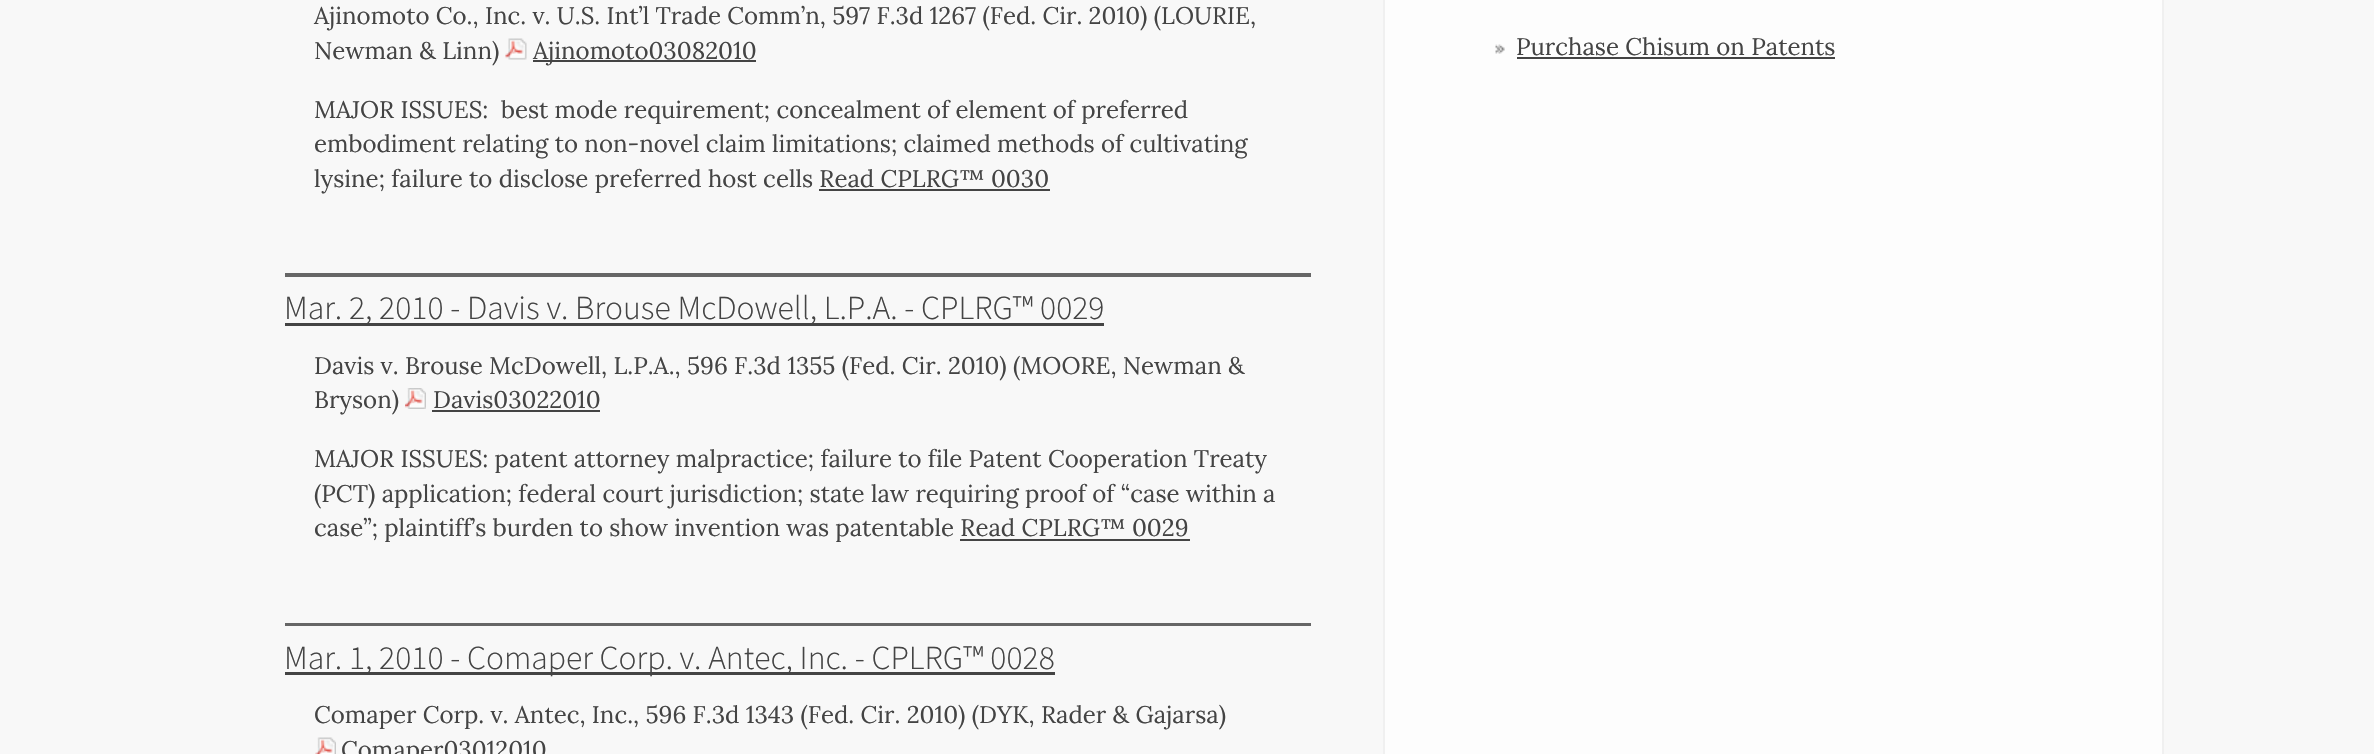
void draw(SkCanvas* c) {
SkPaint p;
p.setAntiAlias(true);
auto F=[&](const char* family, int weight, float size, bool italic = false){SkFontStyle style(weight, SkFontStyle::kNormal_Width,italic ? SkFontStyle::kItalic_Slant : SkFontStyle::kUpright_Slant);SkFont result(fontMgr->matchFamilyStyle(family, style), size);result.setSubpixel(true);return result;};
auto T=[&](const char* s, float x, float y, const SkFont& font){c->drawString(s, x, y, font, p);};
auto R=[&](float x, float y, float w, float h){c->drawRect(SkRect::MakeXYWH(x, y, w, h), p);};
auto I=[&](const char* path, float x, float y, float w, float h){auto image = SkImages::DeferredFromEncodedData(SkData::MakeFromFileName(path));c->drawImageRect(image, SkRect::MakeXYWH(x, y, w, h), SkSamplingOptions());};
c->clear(0xfff8f8f8);
p.setColor(0xff666666);
R(285,273,1026,4);
auto f1 = F("Lora",400,24);
p.setColor(0xff444444);
T("Ajinomoto Co., Inc. v. U.S. Int’l Trade Comm’n, 597 F.3d 1267 (Fed. Cir. 2010) (LOURIE,",314,24,f1);
T("Newman & Linn)",314,59,f1);
I("1.png",505,38,22,22);
R(533,60,223,2);
T("Ajinomoto03082010",533,59,f1);
T("MAJOR ISSUES:  best mode requirement; concealment of element of preferred",314,118,f1);
T("embodiment relating to non-novel claim limitations; claimed methods of cultivating",314,152,f1);
T("lysine; failure to disclose preferred host cells Read CPLRG™ 0030",314,187,f1);
R(819,189,231,2);
p.setColor(0xff666666);
R(285,623,1026,3);
p.setColor(0xff444444);
R(285,323,819,3);
auto f2 = F("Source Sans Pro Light",300,33.6);
T("Mar. 2, 2010 - Davis v. Brouse McDowell, L.P.A. - CPLRG™ 0029",284,319,f2);
T("Davis v. Brouse McDowell, L.P.A., 596 F.3d 1355 (Fed. Cir. 2010) (MOORE, Newman &",314,374,f1);
T("Bryson)",314,408,f1);
I("2.png",405,388,21,21);
T("Davis03022010",433,408,f1);
R(432,410,168,2);
T("MAJOR ISSUES: patent attorney malpractice; failure to file Patent Cooperation Treaty",314,467,f1);
T("(PCT) application; federal court jurisdiction; state law requiring proof of “case within a",314,502,f1);
T("case”; plaintiff’s burden to show invention was patentable Read CPLRG™ 0029",314,536,f1);
R(960,539,230,2);
R(285,672,770,3);
T("Mar. 1, 2010 - Comaper Corp. v. Antec, Inc. - CPLRG™ 0028",284,669,f2);
T("Comaper Corp. v. Antec, Inc., 596 F.3d 1343 (Fed. Cir. 2010) (DYK, Rader & Gajarsa)",314,723,f1);
I("3.png",315,737,21,17);
T("Comaper03012010",341,758,f1);
{
const SkColor colors[] = {0xfffdfdfd,0xfff8f8f8};
const float stops[] = {.81,.99};
const SkPoint ends[] = {{1773,-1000}, {1773,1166}};
p.setShader(SkGradientShader::MakeLinear(ends, colors, stops, 2, SkTileMode::kClamp));
p.setAlpha(255);
}
R(1385,0,777,754);
p.setShader(nullptr);
p.setColor(0xfff0f0f0);
R(2162,0,2,754);
R(1383,0,2,754);
I("4.png",1495,44,10,10);
p.setColor(0xff444444);
T("Purchase Chisum on Patents",1516,55,f1);
R(1517,57,318,2);
}
